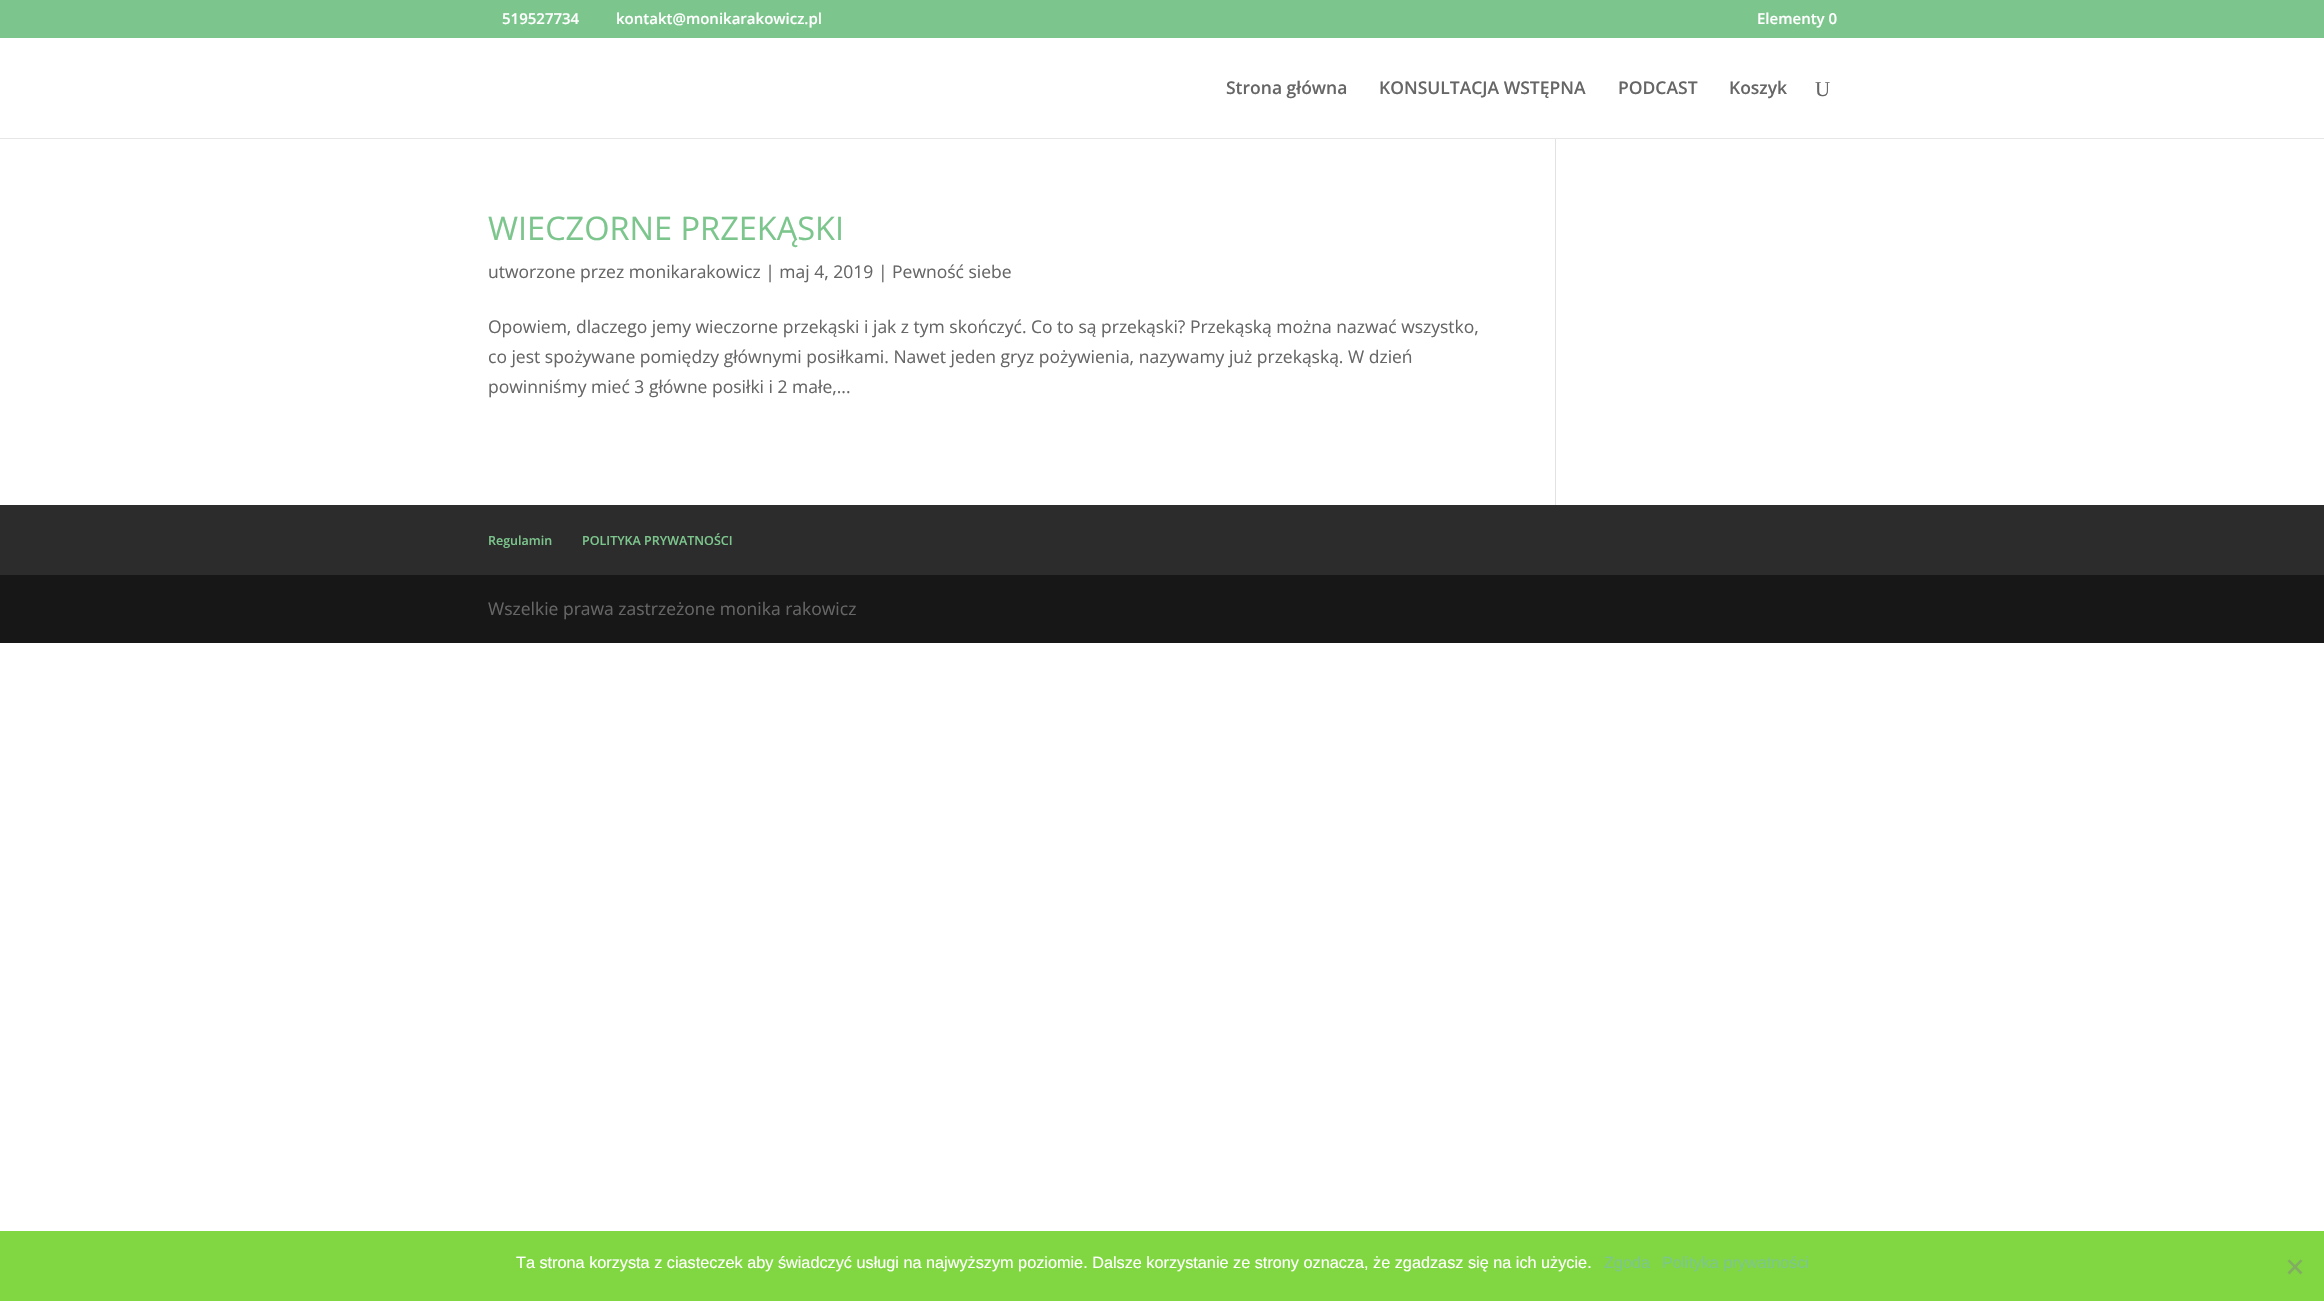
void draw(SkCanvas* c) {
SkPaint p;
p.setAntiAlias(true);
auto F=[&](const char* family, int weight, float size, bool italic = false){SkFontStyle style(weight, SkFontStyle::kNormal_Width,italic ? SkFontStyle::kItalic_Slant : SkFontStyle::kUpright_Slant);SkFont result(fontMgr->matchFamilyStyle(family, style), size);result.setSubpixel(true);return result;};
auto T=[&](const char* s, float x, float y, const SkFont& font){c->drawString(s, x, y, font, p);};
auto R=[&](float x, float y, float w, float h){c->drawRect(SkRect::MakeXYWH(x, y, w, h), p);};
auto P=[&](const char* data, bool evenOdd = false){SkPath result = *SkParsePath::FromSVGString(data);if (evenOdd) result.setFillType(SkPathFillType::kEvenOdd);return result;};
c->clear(0xffffffff);
p.setColor(0xff7cc68d);
R(0,0,2324,38);
auto f1 = F("Open Sans",600,15);
p.setColor(0xffffffff);
T("519527734",502,24,f1);
T("kontakt@monikarakowicz.pl",616,24,f1);
T("Elementy 0",1757,24,f1);
p.setColor(0xffe6e6e6);
R(0,138,2324,1);
auto f2 = F("Open Sans",600,17.5);
p.setColor(0xff666666);
T("Strona główna",1226,94,f2);
T("KONSULTACJA WSTĘPNA",1379,94,f2);
T("PODCAST",1618,94,f2);
T("Koszyk",1729,94,f2);
auto f3 = F("Liberation Serif",400,21);
T("U",1815,96,f3);
auto f4 = F("Open Sans",400,32.5);
p.setColor(0xff7cc68d);
T("WIECZORNE PRZEKĄSKI",488,240,f4);
auto f5 = F("Open Sans",400,17.5);
p.setColor(0xff666666);
T("utworzone przez monikarakowicz | maj 4, 2019 | Pewność siebe",488,278,f5);
T("Opowiem, dlaczego jemy wieczorne przekąski i jak z tym skończyć. Co to są przekąski? Przekąską można nazwać wszystko,",488,333,f5);
T("co jest spożywane pomiędzy głównymi posiłkami. Nawet jeden gryz pożywienia, nazywamy już przekąską. W dzień",488,363,f5);
T("powinniśmy mieć 3 główne posiłki i 2 małe,...",488,393,f5);
p.setColor(0xffe2e2e2);
R(1555,139,1,366);
p.setColor(0xff2c2c2c);
R(0,505,2324,70);
auto f6 = F("Open Sans",600,12.5);
p.setColor(0xff7cc68d);
T("Regulamin",488,545,f6);
T("POLITYKA PRYWATNOŚCI",582,545,f6);
p.setColor(0xff171717);
R(0,575,2324,68);
p.setColor(0xff666666);
T("Wszelkie prawa zastrzeżone monika rakowicz",488,615,f5);
p.setColor(0xff81d742);
R(0,1231,2324,70);
auto f7 = F("Liberation Sans",400,16.25);
p.setColor(0xffffffff);
T("Ta strona korzysta z ciasteczek aby świadczyć usługi na najwyższym poziomie. Dalsze korzystanie ze strony oznacza, że zgadzasz się na ich użycie.",516,1268,f7);
p.setColor(0xff7cc68d);
T("Zgoda",1604,1268,f7);
T("Polityka prywatności",1662,1268,f7);
p.setColor(0xff81ac61);
c->drawPath(P("M2300.5 1259.5l2 1.5l-13 13.5l-2-2z"),p);
c->drawPath(P("M2287.5 1261l2-1.5l13 13l-2 2z"),p);
}
